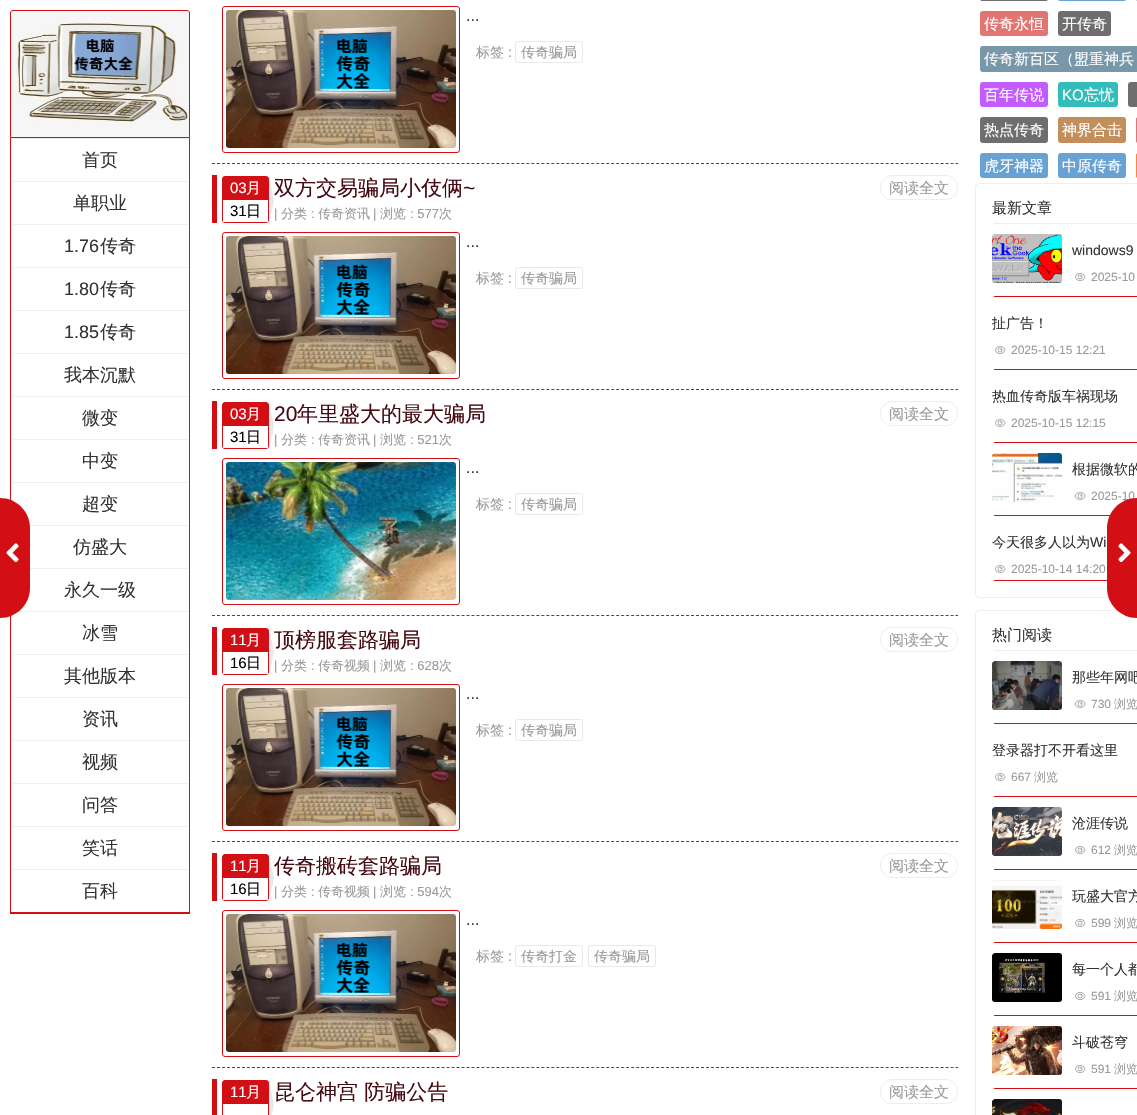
void draw(SkCanvas* c) {
SkPaint p;
p.setAntiAlias(true);
auto F=[&](const char* family, int weight, float size, bool italic = false){SkFontStyle style(weight, SkFontStyle::kNormal_Width,italic ? SkFontStyle::kItalic_Slant : SkFontStyle::kUpright_Slant);SkFont result(fontMgr->matchFamilyStyle(family, style), size);result.setSubpixel(true);return result;};
auto T=[&](const char* s, float x, float y, const SkFont& font){c->drawString(s, x, y, font, p);};
auto R=[&](float x, float y, float w, float h){c->drawRect(SkRect::MakeXYWH(x, y, w, h), p);};
auto Q=[&](float x, float y, float w, float h, float radius){c->drawRoundRect(SkRect::MakeXYWH(x, y, w, h), radius, radius, p);};
auto I=[&](const char* path, float x, float y, float w, float h){auto image = SkImages::DeferredFromEncodedData(SkData::MakeFromFileName(path));c->drawImageRect(image, SkRect::MakeXYWH(x, y, w, h), SkSamplingOptions());};
auto P=[&](const char* data, bool evenOdd = false){SkPath result = *SkParsePath::FromSVGString(data);if (evenOdd) result.setFillType(SkPathFillType::kEvenOdd);return result;};
c->clear(0xffffffff);
I("1.png",11,11,178,126);
p.setStroke(true);
p.setStrokeWidth(1);
p.setColor(0xffd10f15);
c->drawPath(P("M13 10.5h174c1.5 0 2.5 1 2.5 2.5v124.5h-179v-124.5c0-1.5 1-2.5 2.5-2.5z"),p);
p.setStroke(false);
R(189,138,1,775);
R(10,912,180,2);
R(10,138,1,775);
p.setColor(0xffeeeeee);
R(13,138,175,1);
auto f1 = F("WenQuanYi Zen Hei",500,18);
p.setColor(0xff333333);
T("首页",82,166,f1);
p.setColor(0xffeeeeee);
R(13,181,175,1);
p.setColor(0xff333333);
T("单职业",73,209,f1);
p.setColor(0xffeeeeee);
R(13,224,175,1);
auto f2 = F("Liberation Sans",400,18);
p.setColor(0xff333333);
T("1.76",64,252,f2);
T("传奇",100,252,f1);
p.setColor(0xffeeeeee);
R(13,267,175,1);
p.setColor(0xff333333);
T("1.80",64,295,f2);
T("传奇",100,295,f1);
p.setColor(0xffeeeeee);
R(13,310,175,1);
p.setColor(0xff333333);
T("1.85",64,338,f2);
T("传奇",100,338,f1);
p.setColor(0xffeeeeee);
R(13,353,175,1);
p.setColor(0xff333333);
T("我本沉默",64,381,f1);
p.setColor(0xffeeeeee);
R(13,396,175,1);
p.setColor(0xff333333);
T("微变",82,424,f1);
p.setColor(0xffeeeeee);
R(13,439,175,1);
p.setColor(0xff333333);
T("中变",82,467,f1);
p.setColor(0xffeeeeee);
R(13,482,175,1);
p.setColor(0xff333333);
T("超变",82,510,f1);
p.setColor(0xffeeeeee);
R(29,525,159,1);
p.setColor(0xff333333);
T("仿盛大",73,553,f1);
p.setColor(0xffeeeeee);
R(30,568,158,1);
p.setColor(0xff333333);
T("永久一级",64,596,f1);
p.setColor(0xffeeeeee);
R(13,611,175,1);
p.setColor(0xff333333);
T("冰雪",82,639,f1);
p.setColor(0xffeeeeee);
R(13,654,175,1);
p.setColor(0xff333333);
T("其他版本",64,682,f1);
p.setColor(0xffeeeeee);
R(13,697,175,1);
p.setColor(0xff333333);
T("资讯",82,725,f1);
p.setColor(0xffeeeeee);
R(13,740,175,1);
p.setColor(0xff333333);
T("视频",82,768,f1);
p.setColor(0xffeeeeee);
R(13,783,175,1);
p.setColor(0xff333333);
T("问答",82,811,f1);
p.setColor(0xffeeeeee);
R(13,826,175,1);
p.setColor(0xff333333);
T("笑话",82,854,f1);
p.setColor(0xffeeeeee);
R(13,869,175,1);
p.setColor(0xff333333);
T("百科",82,897,f1);
p.setStroke(true);
p.setColor(0xffd10f15);
p.setPathEffect(SkDashPathEffect::Make({{3,1.99f}}, 0));
c->drawPath(P("M212 163.5h746"),p);
p.setPathEffect(nullptr);
c->drawRoundRect(SkRect::MakeXYWH(222.5,6.5,237,146),2.5,2.5,p);
I("2.png",226,10,230,138);
auto f3 = F("Liberation Sans",400,16);
p.setStroke(false);
p.setColor(0xff333333);
T("...",466,21,f3);
auto f4 = F("WenQuanYi Zen Hei",500,14);
p.setColor(0xff999999);
T("标签",476,57,f4);
auto f5 = F("Liberation Sans",400,14);
T(":",508,57,f5);
p.setStroke(true);
p.setColor(0xffe9e9e9);
c->drawRoundRect(SkRect::MakeXYWH(515.5,41.5,67,21),2.5,2.5,p);
p.setStroke(false);
p.setColor(0xff999999);
T("传奇骗局",521,57,f4);
p.setStroke(true);
p.setColor(0xffd10f15);
p.setPathEffect(SkDashPathEffect::Make({{3,1.99f}}, 0));
c->drawPath(P("M212 389.5h746"),p);
p.setPathEffect(nullptr);
p.setStroke(false);
R(212,175,5,48);
c->drawRoundRect(SkRect::MakeXYWH(222.5,176.5,46,46),2.5,2.5,p);
p.setStroke(true);
c->drawRoundRect(SkRect::MakeXYWH(222.5,176.5,46,46),2.5,2.5,p);
auto f6 = F("Liberation Sans",400,15);
p.setStroke(false);
p.setColor(0xffffffff);
T("03",230,193,f6);
auto f7 = F("WenQuanYi Zen Hei",500,15);
T("月",246,193,f7);
p.setColor(0xffe9e9e9);
c->drawPath(P("M269 224v-48l5 24z"),p);
p.setColor(0xffffffff);
R(223,200,45,22);
p.setColor(0xff000000);
T("31",230,216,f6);
T("日",246,216,f7);
auto f8 = F("WenQuanYi Zen Hei",500,21);
p.setColor(0xff450a11);
T("双方交易骗局小伎俩",274,195,f8);
auto f9 = F("Liberation Sans",400,21);
T("~",463,195,f9);
p.setStroke(true);
p.setColor(0xffededed);
c->drawRoundRect(SkRect::MakeXYWH(880.5,175.5,77,24),11.5,11.5,p);
p.setStroke(false);
p.setColor(0xff999999);
T("阅读全文",889,193,f7);
auto f10 = F("Liberation Sans",400,13);
T("|",274,218,f10);
auto f11 = F("WenQuanYi Zen Hei",500,13);
T("分类",281,218,f11);
T(":",311,218,f10);
T("传奇资讯",318,218,f11);
T("|",373,218,f10);
T("浏览",380,218,f11);
T(": 577",410,218,f10);
T("次",439,218,f11);
p.setStroke(true);
p.setColor(0xffd10f15);
c->drawRoundRect(SkRect::MakeXYWH(222.5,232.5,237,146),2.5,2.5,p);
I("2.png",226,236,230,138);
p.setStroke(false);
p.setColor(0xff333333);
T("...",466,247,f3);
p.setColor(0xff999999);
T("标签",476,283,f4);
T(":",508,283,f5);
p.setStroke(true);
p.setColor(0xffe9e9e9);
c->drawRoundRect(SkRect::MakeXYWH(515.5,267.5,67,21),2.5,2.5,p);
p.setStroke(false);
p.setColor(0xff999999);
T("传奇骗局",521,283,f4);
p.setStroke(true);
p.setColor(0xffd10f15);
p.setPathEffect(SkDashPathEffect::Make({{3,1.99f}}, 0));
c->drawPath(P("M212 615.5h746"),p);
p.setPathEffect(nullptr);
p.setStroke(false);
R(212,401,5,48);
c->drawRoundRect(SkRect::MakeXYWH(222.5,402.5,46,46),2.5,2.5,p);
p.setStroke(true);
c->drawRoundRect(SkRect::MakeXYWH(222.5,402.5,46,46),2.5,2.5,p);
p.setStroke(false);
p.setColor(0xffffffff);
T("03",230,419,f6);
T("月",246,419,f7);
p.setColor(0xffe9e9e9);
c->drawPath(P("M269 450v-48l5 24z"),p);
p.setColor(0xffffffff);
R(223,426,45,22);
p.setColor(0xff000000);
T("31",230,442,f6);
T("日",246,442,f7);
p.setColor(0xff450a11);
T("20",274,421,f9);
T("年里盛大的最大骗局",297,421,f8);
p.setStroke(true);
p.setColor(0xffededed);
c->drawRoundRect(SkRect::MakeXYWH(880.5,401.5,77,24),11.5,11.5,p);
p.setStroke(false);
p.setColor(0xff999999);
T("阅读全文",889,419,f7);
T("|",274,444,f10);
T("分类",281,444,f11);
T(":",311,444,f10);
T("传奇资讯",318,444,f11);
T("|",373,444,f10);
T("浏览",380,444,f11);
T(": 521",410,444,f10);
T("次",439,444,f11);
p.setStroke(true);
p.setColor(0xffd10f15);
c->drawRoundRect(SkRect::MakeXYWH(222.5,458.5,237,146),2.5,2.5,p);
I("3.png",226,462,230,138);
p.setStroke(false);
p.setColor(0xff333333);
T("...",466,473,f3);
p.setColor(0xff999999);
T("标签",476,509,f4);
T(":",508,509,f5);
p.setStroke(true);
p.setColor(0xffe9e9e9);
c->drawRoundRect(SkRect::MakeXYWH(515.5,493.5,67,21),2.5,2.5,p);
p.setStroke(false);
p.setColor(0xff999999);
T("传奇骗局",521,509,f4);
p.setStroke(true);
p.setColor(0xffd10f15);
p.setPathEffect(SkDashPathEffect::Make({{3,1.99f}}, 0));
c->drawPath(P("M212 841.5h746"),p);
p.setPathEffect(nullptr);
p.setStroke(false);
R(212,627,5,48);
c->drawRoundRect(SkRect::MakeXYWH(222.5,628.5,46,46),2.5,2.5,p);
p.setStroke(true);
c->drawRoundRect(SkRect::MakeXYWH(222.5,628.5,46,46),2.5,2.5,p);
p.setStroke(false);
p.setColor(0xffffffff);
T("11",230,645,f6);
T("月",246,645,f7);
p.setColor(0xffe9e9e9);
c->drawPath(P("M269 676v-48l5 24z"),p);
p.setColor(0xffffffff);
R(223,652,45,22);
p.setColor(0xff000000);
T("16",230,668,f6);
T("日",246,668,f7);
p.setColor(0xff450a11);
T("顶榜服套路骗局",274,647,f8);
p.setStroke(true);
p.setColor(0xffededed);
c->drawRoundRect(SkRect::MakeXYWH(880.5,627.5,77,24),11.5,11.5,p);
p.setStroke(false);
p.setColor(0xff999999);
T("阅读全文",889,645,f7);
T("|",274,670,f10);
T("分类",281,670,f11);
T(":",311,670,f10);
T("传奇视频",318,670,f11);
T("|",373,670,f10);
T("浏览",380,670,f11);
T(": 628",410,670,f10);
T("次",439,670,f11);
p.setStroke(true);
p.setColor(0xffd10f15);
c->drawRoundRect(SkRect::MakeXYWH(222.5,684.5,237,146),2.5,2.5,p);
I("2.png",226,688,230,138);
p.setStroke(false);
p.setColor(0xff333333);
T("...",466,699,f3);
p.setColor(0xff999999);
T("标签",476,735,f4);
T(":",508,735,f5);
p.setStroke(true);
p.setColor(0xffe9e9e9);
c->drawRoundRect(SkRect::MakeXYWH(515.5,719.5,67,21),2.5,2.5,p);
p.setStroke(false);
p.setColor(0xff999999);
T("传奇骗局",521,735,f4);
p.setStroke(true);
p.setColor(0xffd10f15);
p.setPathEffect(SkDashPathEffect::Make({{3,1.99f}}, 0));
c->drawPath(P("M212 1067.5h746"),p);
p.setPathEffect(nullptr);
p.setStroke(false);
R(212,853,5,48);
c->drawRoundRect(SkRect::MakeXYWH(222.5,854.5,46,46),2.5,2.5,p);
p.setStroke(true);
c->drawRoundRect(SkRect::MakeXYWH(222.5,854.5,46,46),2.5,2.5,p);
p.setStroke(false);
p.setColor(0xffffffff);
T("11",230,871,f6);
T("月",246,871,f7);
p.setColor(0xffe9e9e9);
c->drawPath(P("M269 902v-48l5 24z"),p);
p.setColor(0xffffffff);
R(223,878,45,22);
p.setColor(0xff000000);
T("16",230,894,f6);
T("日",246,894,f7);
p.setColor(0xff450a11);
T("传奇搬砖套路骗局",274,873,f8);
p.setStroke(true);
p.setColor(0xffededed);
c->drawRoundRect(SkRect::MakeXYWH(880.5,853.5,77,24),11.5,11.5,p);
p.setStroke(false);
p.setColor(0xff999999);
T("阅读全文",889,871,f7);
T("|",274,896,f10);
T("分类",281,896,f11);
T(":",311,896,f10);
T("传奇视频",318,896,f11);
T("|",373,896,f10);
T("浏览",380,896,f11);
T(": 594",410,896,f10);
T("次",439,896,f11);
p.setStroke(true);
p.setColor(0xffd10f15);
c->drawRoundRect(SkRect::MakeXYWH(222.5,910.5,237,146),2.5,2.5,p);
I("2.png",226,914,230,138);
p.setStroke(false);
p.setColor(0xff333333);
T("...",466,925,f3);
p.setColor(0xff999999);
T("标签",476,961,f4);
T(":",508,961,f5);
p.setStroke(true);
p.setColor(0xffe9e9e9);
c->drawRoundRect(SkRect::MakeXYWH(515.5,945.5,67,21),2.5,2.5,p);
p.setStroke(false);
p.setColor(0xff999999);
T("传奇打金",521,961,f4);
p.setStroke(true);
p.setColor(0xffe9e9e9);
c->drawRoundRect(SkRect::MakeXYWH(588.5,945.5,67,21),2.5,2.5,p);
p.setStroke(false);
p.setColor(0xff999999);
T("传奇骗局",594,961,f4);
p.setColor(0xffd10f15);
R(212,1079,5,36);
c->drawRoundRect(SkRect::MakeXYWH(222.5,1080.5,46,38),2.5,2.5,p);
p.setStroke(true);
c->drawRoundRect(SkRect::MakeXYWH(222.5,1080.5,46,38),2.5,2.5,p);
p.setStroke(false);
p.setColor(0xffffffff);
T("11",230,1097,f6);
T("月",246,1097,f7);
p.setColor(0xffe9e9e9);
c->drawPath(P("M269 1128v-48l5 24z"),p);
p.setColor(0xffffffff);
R(223,1104,45,11);
p.setColor(0xff450a11);
T("昆仑神宫 防骗公告",274,1099,f8);
p.setStroke(true);
p.setColor(0xffededed);
c->drawRoundRect(SkRect::MakeXYWH(880.5,1079.5,77,24),11.5,11.5,p);
p.setStroke(false);
p.setColor(0xff999999);
T("阅读全文",889,1097,f7);
p.setColor(0xffd10f15);
c->drawPath(P("M0 498c16.5 0 30 13.5 30 30v60c0 16.5-13.5 30-30 30z"),p);
I("4.png",6,543,13,20);
p.setStroke(true);
p.setColor(0xffeeeeee);
c->drawRoundRect(SkRect::MakeXYWH(975.5,183.5,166,414),3.5,3.5,p);
p.setStroke(false);
p.setColor(0xffd10f15);
R(994,515,116,1);
auto f12 = F("Liberation Sans",400,12);
p.setColor(0xff999999);
T("2025-10",1091,500,f12);
p.setStroke(true);
p.setColor(0xffeeeeee);
c->drawRoundRect(SkRect::MakeXYWH(975.5,610.5,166,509),3.5,3.5,p);
p.setStroke(false);
p.setColor(0xffd10f15);
c->drawPath(P("M1137 498v120c-16.5 0-30-13.5-30-30v-60c0-16.5 13.5-30 30-30z"),p);
I("5.png",1118,543,13,20);
p.setColor(0xff6e6e6e);
Q(980,-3,68,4,3);
p.setColor(0xff68a2d5);
Q(1058,-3,68,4,3);
Q(1136,-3,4,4,3);
p.setColor(0xffe17572);
Q(980,11,68,25,3);
p.setColor(0xffffffff);
T("传奇永恒",984,29,f7);
p.setColor(0xff6e6e6e);
Q(1058,11,53,25,3);
p.setColor(0xffffffff);
T("开传奇",1062,29,f7);
p.setColor(0xff7898aa);
Q(980,46,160,26,3);
p.setColor(0xffffffff);
T("传奇新百区（盟重神兵",984,64,f7);
p.setColor(0xffc35cff);
Q(980,82,68,25,3);
p.setColor(0xffffffff);
T("百年传说",984,100,f7);
p.setColor(0xff33bcba);
Q(1058,82,60,25,3);
p.setColor(0xffffffff);
T("KO",1062,100,f6);
T("忘忧",1084,100,f7);
p.setColor(0xff6e6e6e);
Q(1128,82,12,25,3);
Q(980,117,68,26,3);
p.setColor(0xffffffff);
T("热点传奇",984,135,f7);
p.setColor(0xffc28f5c);
Q(1058,117,68,26,3);
p.setColor(0xffffffff);
T("神界合击",1062,135,f7);
p.setColor(0xffe17572);
Q(1136,117,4,26,3);
p.setColor(0xff68a2d5);
Q(980,153,68,25,3);
p.setColor(0xffffffff);
T("虎牙神器",984,171,f7);
p.setColor(0xff68a2d5);
Q(1058,153,68,25,3);
p.setColor(0xffffffff);
T("中原传奇",1062,171,f7);
p.setColor(0xffff8533);
Q(1136,153,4,25,3);
p.setColor(0xffeeeeee);
R(994,223,143,1);
p.setColor(0xff333333);
T("最新文章",992,213,f7);
p.setColor(0xffd10f15);
R(994,296,143,1);
I("6.png",992,234,70,49);
p.setColor(0xff333333);
T("windows9",1072,255,f5);
I("7.png",1074,273,12,8);
p.setColor(0xff999999);
T("2025-10",1091,281,f12);
p.setColor(0xffd10f15);
R(994,369,143,1);
p.setColor(0xff333333);
T("扯广告！",992,328,f4);
I("7.png",994,346,12,8);
p.setColor(0xff999999);
T("2025-10-15 12:21",1011,354,f12);
p.setColor(0xffd10f15);
R(994,442,143,1);
p.setColor(0xff333333);
T("热血传奇版车祸现场",992,401,f4);
I("7.png",994,419,12,8);
p.setColor(0xff999999);
T("2025-10-15 12:15",1011,427,f12);
I("8.png",992,453,70,49);
p.setColor(0xff333333);
T("根据微软的",1072,474,f4);
I("7.png",1074,492,12,8);
p.setColor(0xffd10f15);
R(994,580,113,1);
p.setColor(0xff333333);
T("今天很多人以为",992,547,f4);
T("Wi",1090,547,f5);
I("7.png",994,565,12,8);
p.setColor(0xff999999);
T("2025-10-14 14:20",1011,573,f12);
p.setColor(0xffeeeeee);
R(994,650,143,1);
p.setColor(0xff333333);
T("热门阅读",992,640,f7);
p.setColor(0xffd10f15);
R(994,723,143,1);
I("9.png",992,661,70,49);
p.setColor(0xff333333);
T("那些年网吧",1072,682,f4);
I("7.png",1074,700,12,8);
p.setColor(0xff999999);
T("730",1091,708,f12);
auto f13 = F("WenQuanYi Zen Hei",500,12);
T("浏览",1114,708,f13);
p.setColor(0xffd10f15);
R(994,796,143,1);
p.setColor(0xff333333);
T("登录器打不开看这里",992,755,f4);
I("7.png",994,773,12,8);
p.setColor(0xff999999);
T("667",1011,781,f12);
T("浏览",1034,781,f13);
p.setColor(0xffd10f15);
R(994,869,143,1);
I("10.png",992,807,70,49);
p.setColor(0xff333333);
T("沧涯传说",1072,828,f4);
I("7.png",1074,846,12,8);
p.setColor(0xff999999);
T("612",1091,854,f12);
T("浏览",1114,854,f13);
p.setColor(0xffd10f15);
R(994,942,143,1);
I("11.png",992,880,70,49);
p.setColor(0xff333333);
T("玩盛大官方",1072,901,f4);
I("7.png",1074,919,12,8);
p.setColor(0xff999999);
T("599",1091,927,f12);
T("浏览",1114,927,f13);
p.setColor(0xffd10f15);
R(994,1015,143,1);
I("12.png",992,953,70,49);
p.setColor(0xff333333);
T("每一个人都",1072,974,f4);
I("7.png",1074,992,12,8);
p.setColor(0xff999999);
T("591",1091,1000,f12);
T("浏览",1114,1000,f13);
p.setColor(0xffd10f15);
R(994,1088,143,1);
I("13.png",992,1026,70,49);
p.setColor(0xff333333);
T("斗破苍穹",1072,1047,f4);
I("7.png",1074,1065,12,8);
p.setColor(0xff999999);
T("591",1091,1073,f12);
T("浏览",1114,1073,f13);
I("14.png",992,1099,70,16);
}
